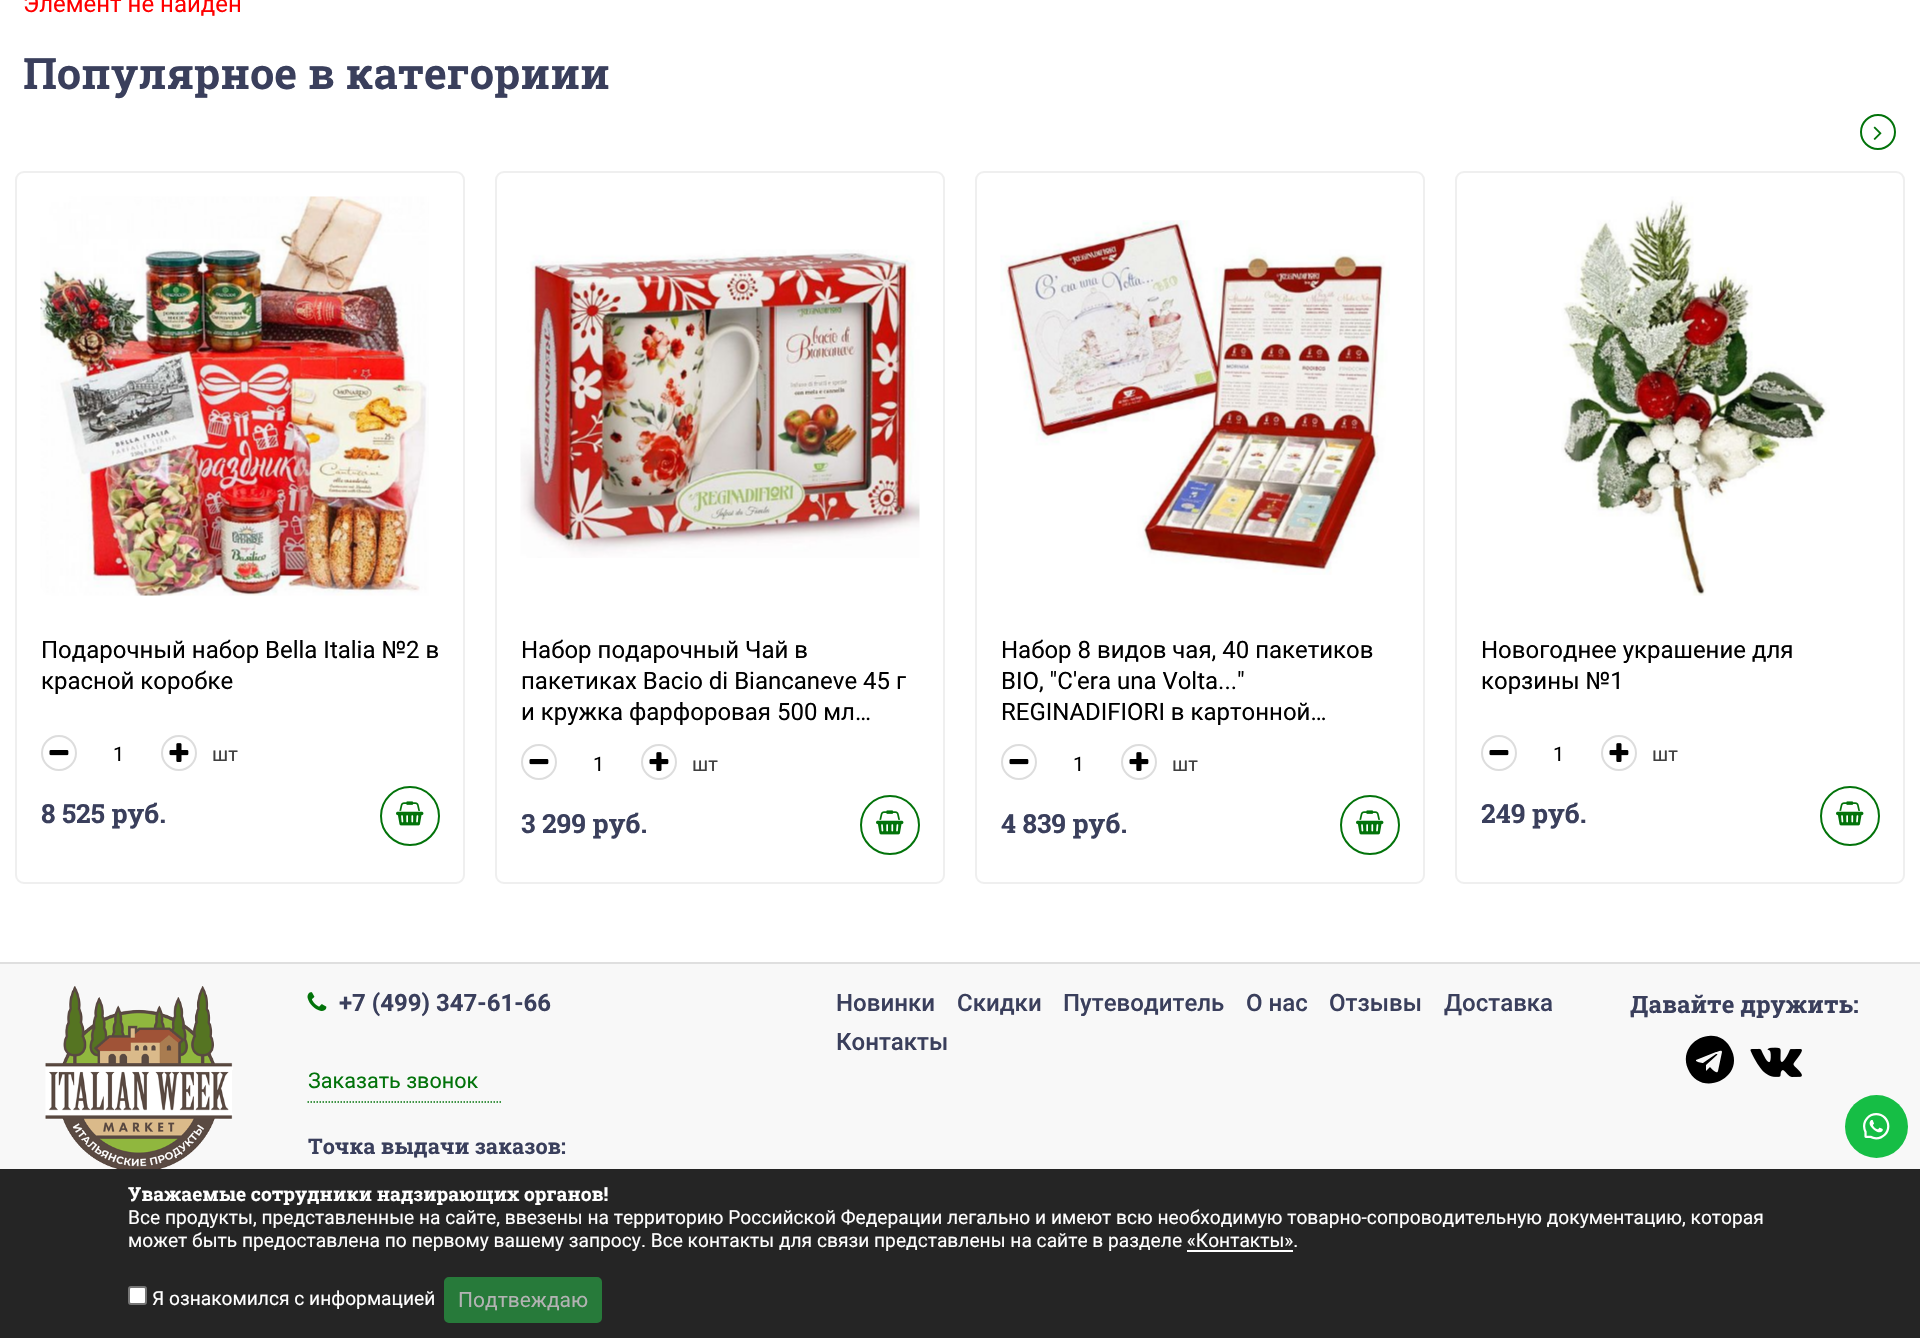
void draw(SkCanvas* c) {
SkPaint p;
p.setAntiAlias(true);
auto F=[&](const char* family, int weight, float size, bool italic = false){SkFontStyle style(weight, SkFontStyle::kNormal_Width,italic ? SkFontStyle::kItalic_Slant : SkFontStyle::kUpright_Slant);SkFont result(fontMgr->matchFamilyStyle(family, style), size);result.setSubpixel(true);return result;};
auto T=[&](const char* s, float x, float y, const SkFont& font){c->drawString(s, x, y, font, p);};
auto R=[&](float x, float y, float w, float h){c->drawRect(SkRect::MakeXYWH(x, y, w, h), p);};
auto I=[&](const char* path, float x, float y, float w, float h){auto image = SkImages::DeferredFromEncodedData(SkData::MakeFromFileName(path));c->drawImageRect(image, SkRect::MakeXYWH(x, y, w, h), SkSamplingOptions());};
auto P=[&](const char* data, bool evenOdd = false){SkPath result = *SkParsePath::FromSVGString(data);if (evenOdd) result.setFillType(SkPathFillType::kEvenOdd);return result;};
c->clear(0xffffffff);
auto f1 = F("Roboto",400,24);
p.setColor(0xffff0000);
T("Элемент не найден",23,12,f1);
auto f2 = F("Roboto Slab",700,43.25);
p.setColor(0xff3a3f5c);
T("Популярное в категориии",23,89,f2);
p.setStroke(true);
p.setStrokeWidth(2);
p.setColor(0xff02730a);
c->drawCircle(1878,132,17,p);
I("1.png",1873,126,9,14);
p.setColor(0xffefefef);
c->drawRoundRect(SkRect::MakeXYWH(16,172,448,711),8,8,p);
I("2.png",40,196,389,400);
p.setStroke(false);
p.setColor(0xff000000);
T("Подарочный набор Bella Italia №2 в",41,658,f1);
T("красной коробке",41,689,f1);
p.setStroke(true);
p.setColor(0xffdddddd);
c->drawCircle(59,753,17,p);
I("3.png",49,750,20,6);
auto f3 = F("Roboto",400,20);
p.setStroke(false);
p.setColor(0xff000000);
T("1",113,761,f3);
p.setStroke(true);
p.setColor(0xffdddddd);
c->drawCircle(179,753,17,p);
I("4.png",169,743,20,19);
p.setStroke(false);
p.setColor(0xff3f3f3f);
T("шт",212,761,f3);
auto f4 = F("Roboto Slab",700,26.5);
p.setColor(0xff3a3f5c);
T("8 525 руб.",41,823,f4);
p.setStroke(true);
p.setColor(0xff02730a);
c->drawCircle(410,816,29,p);
I("5.png",396,801,28,25);
p.setColor(0xffefefef);
c->drawRoundRect(SkRect::MakeXYWH(496,172,448,711),8,8,p);
I("6.png",520,249,400,309);
p.setStroke(false);
p.setColor(0xff000000);
T("Набор подарочный Чай в",521,658,f1);
T("пакетиках Bacio di Biancaneve 45 г",521,689,f1);
T("и кружка фарфоровая 500 мл…",521,720,f1);
p.setStroke(true);
p.setColor(0xffdddddd);
c->drawCircle(539,762,17,p);
I("3.png",529,759,20,6);
p.setStroke(false);
p.setColor(0xff000000);
T("1",593,771,f3);
p.setStroke(true);
p.setColor(0xffdddddd);
c->drawCircle(659,762,17,p);
I("4.png",649,752,20,19);
p.setStroke(false);
p.setColor(0xff3f3f3f);
T("шт",692,771,f3);
p.setColor(0xff3a3f5c);
T("3 299 руб.",521,833,f4);
p.setStroke(true);
p.setColor(0xff02730a);
c->drawCircle(890,825,29,p);
I("5.png",876,810,28,25);
p.setColor(0xffefefef);
c->drawRoundRect(SkRect::MakeXYWH(976,172,448,711),8,8,p);
I("7.png",1000,220,390,355);
p.setStroke(false);
p.setColor(0xff000000);
T("Набор 8 видов чая, 40 пакетиков",1001,658,f1);
T("BIO, \"C'era una Volta...\"",1001,689,f1);
T("REGINADIFIORI в картонной…",1001,720,f1);
p.setStroke(true);
p.setColor(0xffdddddd);
c->drawCircle(1019,762,17,p);
I("3.png",1009,759,20,6);
p.setStroke(false);
p.setColor(0xff000000);
T("1",1073,771,f3);
p.setStroke(true);
p.setColor(0xffdddddd);
c->drawCircle(1139,762,17,p);
I("4.png",1129,752,20,19);
p.setStroke(false);
p.setColor(0xff3f3f3f);
T("шт",1172,771,f3);
p.setColor(0xff3a3f5c);
T("4 839 руб.",1001,833,f4);
p.setStroke(true);
p.setColor(0xff02730a);
c->drawCircle(1370,825,29,p);
I("5.png",1356,810,28,25);
p.setColor(0xffefefef);
c->drawRoundRect(SkRect::MakeXYWH(1456,172,448,711),8,8,p);
I("8.png",1561,196,269,400);
p.setStroke(false);
p.setColor(0xff000000);
T("Новогоднее украшение для",1481,658,f1);
T("корзины №1",1481,689,f1);
p.setStroke(true);
p.setColor(0xffdddddd);
c->drawCircle(1499,753,17,p);
I("3.png",1489,750,20,6);
p.setStroke(false);
p.setColor(0xff000000);
T("1",1553,761,f3);
p.setStroke(true);
p.setColor(0xffdddddd);
c->drawCircle(1619,753,17,p);
I("4.png",1609,743,20,19);
p.setStroke(false);
p.setColor(0xff3f3f3f);
T("шт",1652,761,f3);
p.setColor(0xff3a3f5c);
T("249 руб.",1481,823,f4);
p.setStroke(true);
p.setColor(0xff02730a);
c->drawCircle(1850,816,29,p);
I("5.png",1836,801,28,25);
p.setStroke(false);
p.setColor(0xfff8f8f8);
R(0,964,1920,205);
p.setColor(0xffdfdfdf);
R(0,962,1920,2);
I("9.png",45,986,188,183);
I("10.png",307,992,20,19);
auto f5 = F("Roboto",700,24);
p.setColor(0xff3a3f5c);
T("+7 (499) 347-61-66",339,1011,f5);
p.setStroke(true);
p.setStrokeWidth(1.5);
p.setColor(0xff02730a);
p.setPathEffect(SkDashPathEffect::Make({{1.5f,1.5f}}, 0));
c->drawPath(P("M307.5 1102h195"),p);
p.setPathEffect(nullptr);
auto f6 = F("Roboto",400,21.6);
p.setStroke(false);
T("Заказать звонок",308,1088,f6);
auto f7 = F("Roboto Slab",700,21.6);
p.setColor(0xff3a3f5c);
T("Точка выдачи заказов:",308,1154,f7);
auto f8 = F("Roboto",500,24);
T("Новинки",836,1011,f8);
T("Скидки",957,1011,f8);
T("Путеводитель",1063,1011,f8);
T("О нас",1246,1011,f8);
T("Отзывы",1329,1011,f8);
T("Доставка",1444,1011,f8);
T("Контакты",836,1050,f8);
auto f9 = F("Roboto Slab",700,24);
T("Давайте дружить:",1630,1013,f9);
p.setColor(0xff000000);
c->drawPath(P("M1718 1071l4-19c0-3-5 0-6 0l-20 8c-1 2 6 3 7 3l13-9c1 0 2 0 1 1l-11 10v6l4-4c1 1 7 8 8 4zm14-20c12 28-32 47-44 18c-12-29 32-48 44-18z"),p);
I("11.png",1750,1047,52,30);
I("12.png",1845,1095,63,63);
p.setColor(0xff252525);
R(0,1169,1920,169);
auto f10 = F("Roboto Slab",700,19.2);
p.setColor(0xffffffff);
T("Уважаемые сотрудники надзирающих органов!",128,1201,f10);
auto f11 = F("Roboto",400,19.2);
T("Все продукты, представленные на сайте, ввезены на территорию Российской Федерации легально и имеют всю необходимую товарно-сопроводительную документацию, которая",128,1224,f11);
T("может быть предоставлена по первому вашему запросу. Все контакты для связи представлены на сайте в разделе «Контакты».",128,1247,f11);
R(1187,1250,106,2);
c->drawRoundRect(SkRect::MakeXYWH(129,1287,17,17),2,2,p);
p.setStroke(true);
p.setStrokeWidth(2);
p.setColor(0xff767676);
c->drawRoundRect(SkRect::MakeXYWH(129,1287,17,17),2,2,p);
p.setStroke(false);
p.setColor(0xffffffff);
T("Я ознакомился с информацией",152,1305,f11);
p.setColor(0xff277a3a);
c->drawRoundRect(SkRect::MakeXYWH(445,1278,156,44),4,4,p);
p.setStroke(true);
c->drawRoundRect(SkRect::MakeXYWH(445,1278,156,44),4,4,p);
auto f12 = F("Roboto",400,21);
p.setStroke(false);
p.setColor(0xffb3b3b3);
T("Подтвеждаю",458,1307,f12);
}
